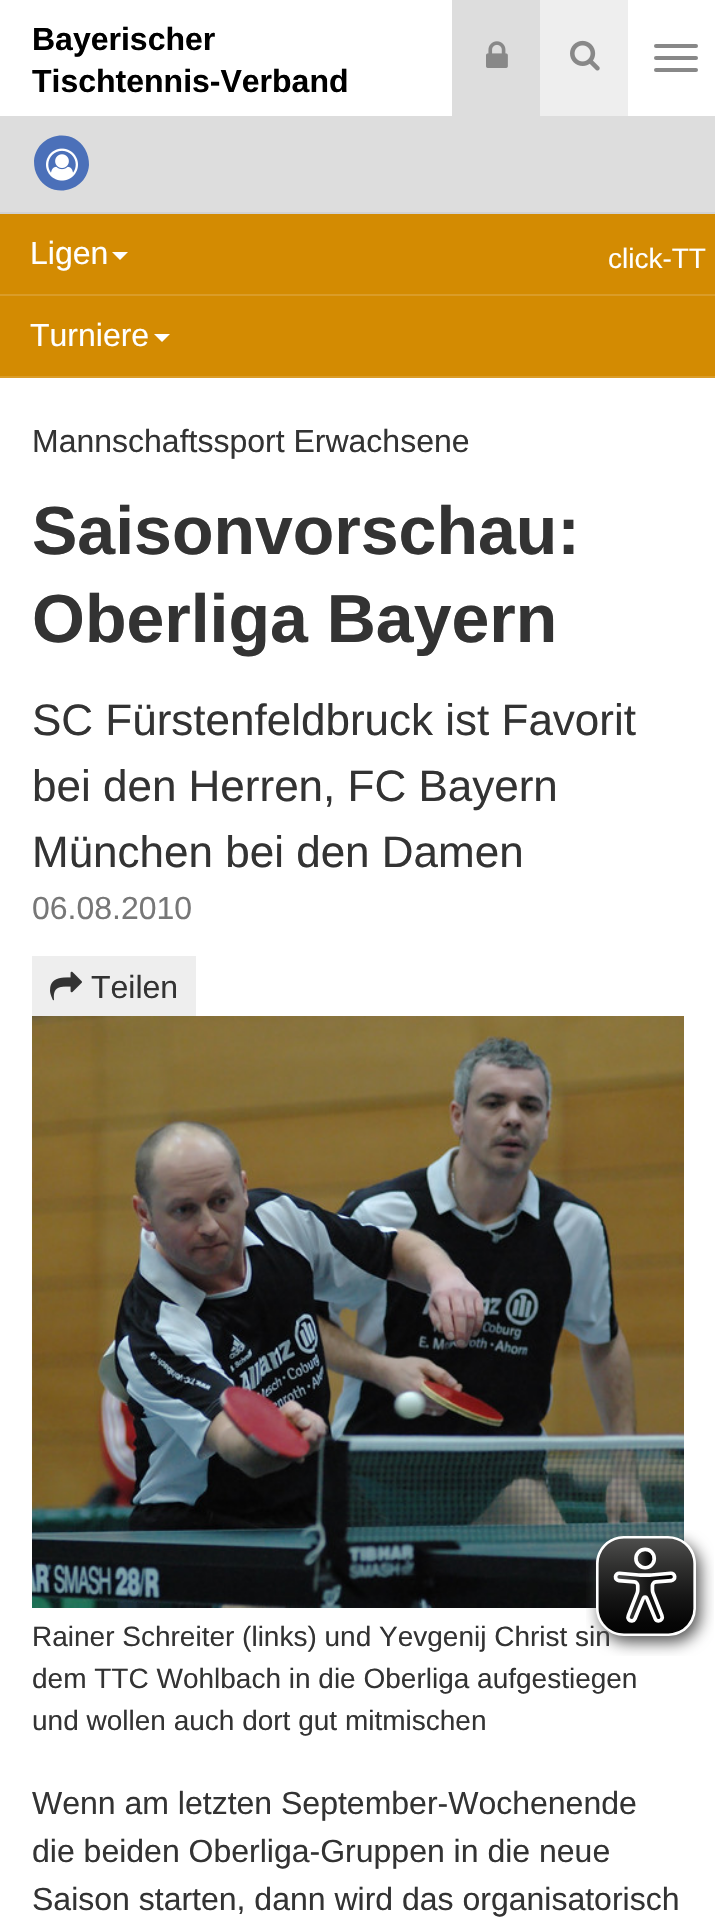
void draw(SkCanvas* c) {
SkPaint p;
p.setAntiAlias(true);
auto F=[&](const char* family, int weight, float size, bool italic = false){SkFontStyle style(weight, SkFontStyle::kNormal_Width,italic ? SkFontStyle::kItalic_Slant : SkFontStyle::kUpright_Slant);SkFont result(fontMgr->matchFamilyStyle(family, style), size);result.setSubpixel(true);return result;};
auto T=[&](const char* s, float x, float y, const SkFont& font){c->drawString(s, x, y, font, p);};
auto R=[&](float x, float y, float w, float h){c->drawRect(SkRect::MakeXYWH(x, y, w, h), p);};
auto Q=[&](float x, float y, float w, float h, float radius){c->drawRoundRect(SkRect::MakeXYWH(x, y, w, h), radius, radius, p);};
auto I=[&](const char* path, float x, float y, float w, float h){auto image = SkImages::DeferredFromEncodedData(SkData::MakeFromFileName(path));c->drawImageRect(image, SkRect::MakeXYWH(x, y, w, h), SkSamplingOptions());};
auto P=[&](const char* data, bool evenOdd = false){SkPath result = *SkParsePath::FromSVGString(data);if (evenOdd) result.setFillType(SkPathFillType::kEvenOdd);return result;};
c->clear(0xffffffff);
auto f1 = F("Liberation Sans",700,32);
p.setColor(0xff000000);
T("Bayerischer",32,50,f1);
T("Tischtennis-Verband",32,92,f1);
p.setColor(0xffdddddd);
R(452,0,88,116);
I("1.png",486,41,22,27);
p.setColor(0xffeeeeee);
R(540,0,88,116);
I("2.png",570,40,30,31);
p.setColor(0xff888888);
Q(654,44,44,4,2);
Q(654,56,44,4,2);
Q(654,68,44,4,2);
p.setColor(0xffdddddd);
R(0,116,715,96);
p.setColor(0xffd2d2d2);
R(0,212,715,2);
p.setColor(0xff4b70b9);
c->drawPath(P("M85 149c3 5 4 11 4 16c-2 27-38 35-51 12c-3-5-4-10-4-16c2-27 38-35 51-12z"),p);
I("3.png",46,148,32,33);
p.setColor(0xffd38b02);
R(0,214,715,162);
p.setColor(0xffda9c28);
R(0,294,715,2);
auto f2 = F("Liberation Sans",400,32);
p.setColor(0xffffffff);
T("Ligen",30,264,f2);
c->drawPath(P("M112 252h16l-8 8z"),p);
auto f3 = F("Liberation Sans",400,28);
T("click-TT",608,268,f3);
p.setColor(0xffda9c28);
R(0,376,715,2);
p.setColor(0xffffffff);
T("Turniere",30,346,f2);
c->drawPath(P("M154 334h16l-8 8z"),p);
p.setColor(0xff333333);
T("Mannschaftssport Erwachsene",32,452,f2);
auto f4 = F("Liberation Sans",700,68);
T("Saisonvorschau:",32,554,f4);
T("Oberliga Bayern",32,642,f4);
auto f5 = F("Liberation Sans",400,44);
T("SC Fürstenfeldbruck ist Favorit",32,735,f5);
T("bei den Herren, FC Bayern",32,801,f5);
T("München bei den Damen",32,867,f5);
p.setColor(0xff777777);
T("06.08.2010",32,919,f2);
p.setColor(0xffeeeeee);
R(32,956,164,60);
I("4.png",50,971,32,30);
p.setColor(0xff333333);
T("Teilen",91,998,f2);
I("5.png",32,1016,652,592);
T("Rainer Schreiter (links) und Yevgenij Christ sin",32,1646,f3);
T("dem TTC Wohlbach in die Oberliga aufgestiegen",32,1688,f3);
T("und wollen auch dort gut mitmischen",32,1730,f3);
T("Wenn am letzten September-Wochenende",32,1814,f2);
T("die beiden Oberliga-Gruppen in die neue",32,1862,f2);
T("Saison starten, dann wird das organisatorisch",32,1910,f2);
p.setColor(0xffffffff);
c->drawPath(P("M636 1798.5l20.5 20.5l-1.5 1l-20.5-20z"),p);
I("6.png",586,1530,128,126);
}
